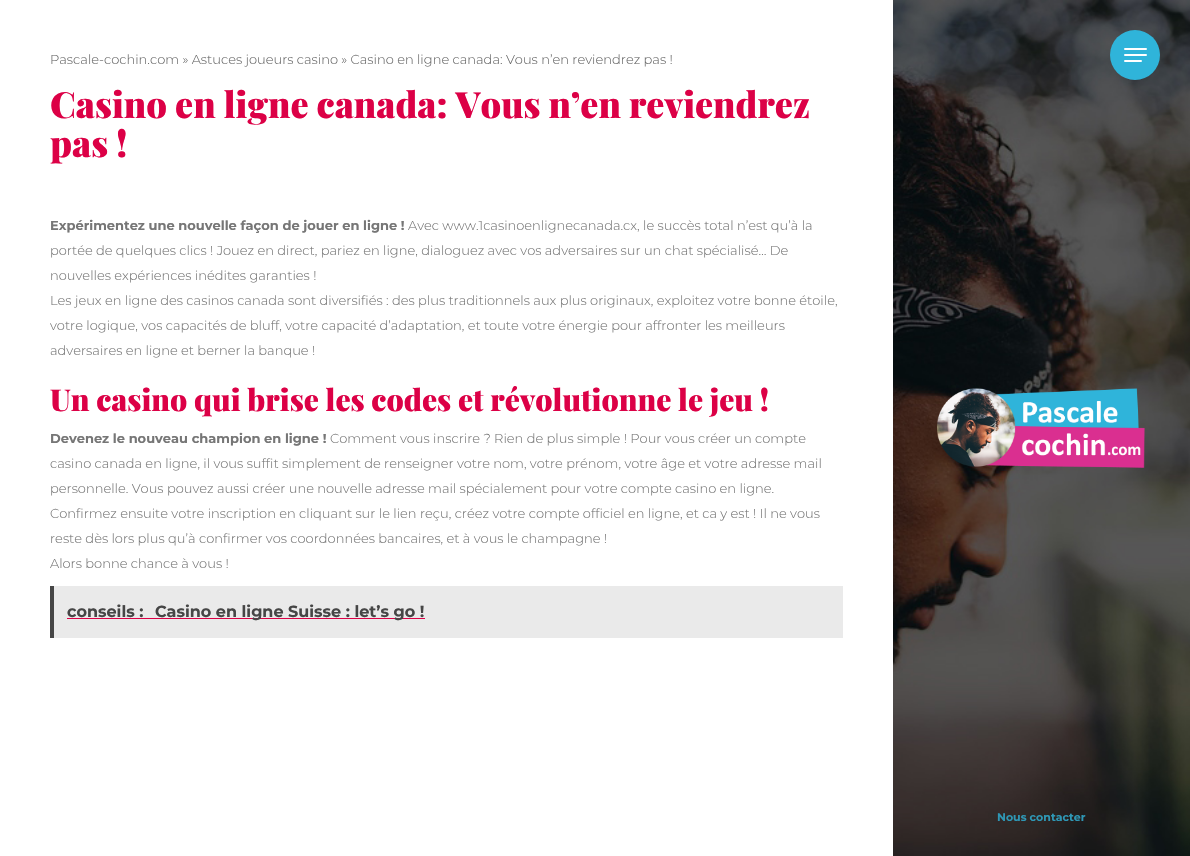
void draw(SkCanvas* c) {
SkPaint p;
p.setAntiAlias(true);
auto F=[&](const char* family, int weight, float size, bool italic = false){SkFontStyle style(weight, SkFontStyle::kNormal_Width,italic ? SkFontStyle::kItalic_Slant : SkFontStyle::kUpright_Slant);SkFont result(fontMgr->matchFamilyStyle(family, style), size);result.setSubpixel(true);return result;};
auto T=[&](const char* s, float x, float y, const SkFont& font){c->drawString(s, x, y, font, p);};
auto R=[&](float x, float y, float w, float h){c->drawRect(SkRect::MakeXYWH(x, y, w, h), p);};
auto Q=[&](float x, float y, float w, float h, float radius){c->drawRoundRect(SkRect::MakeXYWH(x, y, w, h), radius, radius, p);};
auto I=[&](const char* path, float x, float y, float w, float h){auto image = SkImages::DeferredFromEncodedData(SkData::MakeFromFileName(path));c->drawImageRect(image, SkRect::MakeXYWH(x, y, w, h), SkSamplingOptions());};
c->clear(0xffffffff);
auto f1 = F("Montserrat",300,13);
p.setColor(0xff696969);
T("Pascale-cochin.com » Astuces joueurs casino » Casino en ligne canada: Vous n’en reviendrez pas !",50,64,f1);
auto f2 = F("Playfair Display",900,36);
p.setColor(0xffdc0046);
T("Casino en ligne canada: Vous n’en reviendrez",50,118,f2);
T("pas !",50,157,f2);
auto f3 = F("Montserrat",700,13);
p.setColor(0xff767676);
T("Expérimentez une nouvelle façon de jouer en ligne !",50,230,f3);
T("Avec www.1casinoenlignecanada.cx, le succès total n’est qu’à la",408,230,f1);
T("portée de quelques clics ! Jouez en direct, pariez en ligne, dialoguez avec vos adversaires sur un chat spécialisé… De",50,255,f1);
T("nouvelles expériences inédites garanties !",50,280,f1);
T("Les jeux en ligne des casinos canada sont diversifiés : des plus traditionnels aux plus originaux, exploitez votre bonne étoile,",50,305,f1);
T("votre logique, vos capacités de bluff, votre capacité d’adaptation, et toute votre énergie pour affronter les meilleurs",50,330,f1);
T("adversaires en ligne et berner la banque !",50,355,f1);
auto f4 = F("Playfair Display",900,30);
p.setColor(0xffdc0046);
T("Un casino qui brise les codes et révolutionne le jeu !",50,411,f4);
p.setColor(0xff767676);
T("Devenez le nouveau champion en ligne !",50,443,f3);
T("Comment vous inscrire ? Rien de plus simple ! Pour vous créer un compte",330,443,f1);
T("casino canada en ligne, il vous suffit simplement de renseigner votre nom, votre prénom, votre âge et votre adresse mail",50,468,f1);
T("personnelle. Vous pouvez aussi créer une nouvelle adresse mail spécialement pour votre compte casino en ligne.",50,493,f1);
T("Confirmez ensuite votre inscription en cliquant sur le lien reçu, créez votre compte officiel en ligne, et ca y est ! Il ne vous",50,518,f1);
T("reste dès lors plus qu’à confirmer vos coordonnées bancaires, et à vous le champagne !",50,543,f1);
T("Alors bonne chance à vous !",50,568,f1);
p.setColor(0xffeaeaea);
R(54,586,789,52);
p.setColor(0xff464646);
R(50,586,4,52);
auto f5 = F("Montserrat",700,16);
T("conseils :",67,617,f5);
p.setColor(0xffdc0046);
R(67,618,358,1);
p.setColor(0xff464646);
T("Casino en ligne Suisse : let’s go !",155,617,f5);
I("1.png",893,0,297,856);
I("2.png",937,388,208,80);
auto f6 = F("Montserrat",700,11);
p.setColor(0xff2e97b5);
T("Nous contacter",997,821,f6);
p.setColor(0xff2fb4da);
c->drawCircle(1135,55,25,p);
p.setColor(0xffffffff);
Q(1124,48,23,2,1);
Q(1124,54,23,2,1);
Q(1124,60,18,2,1);
}
